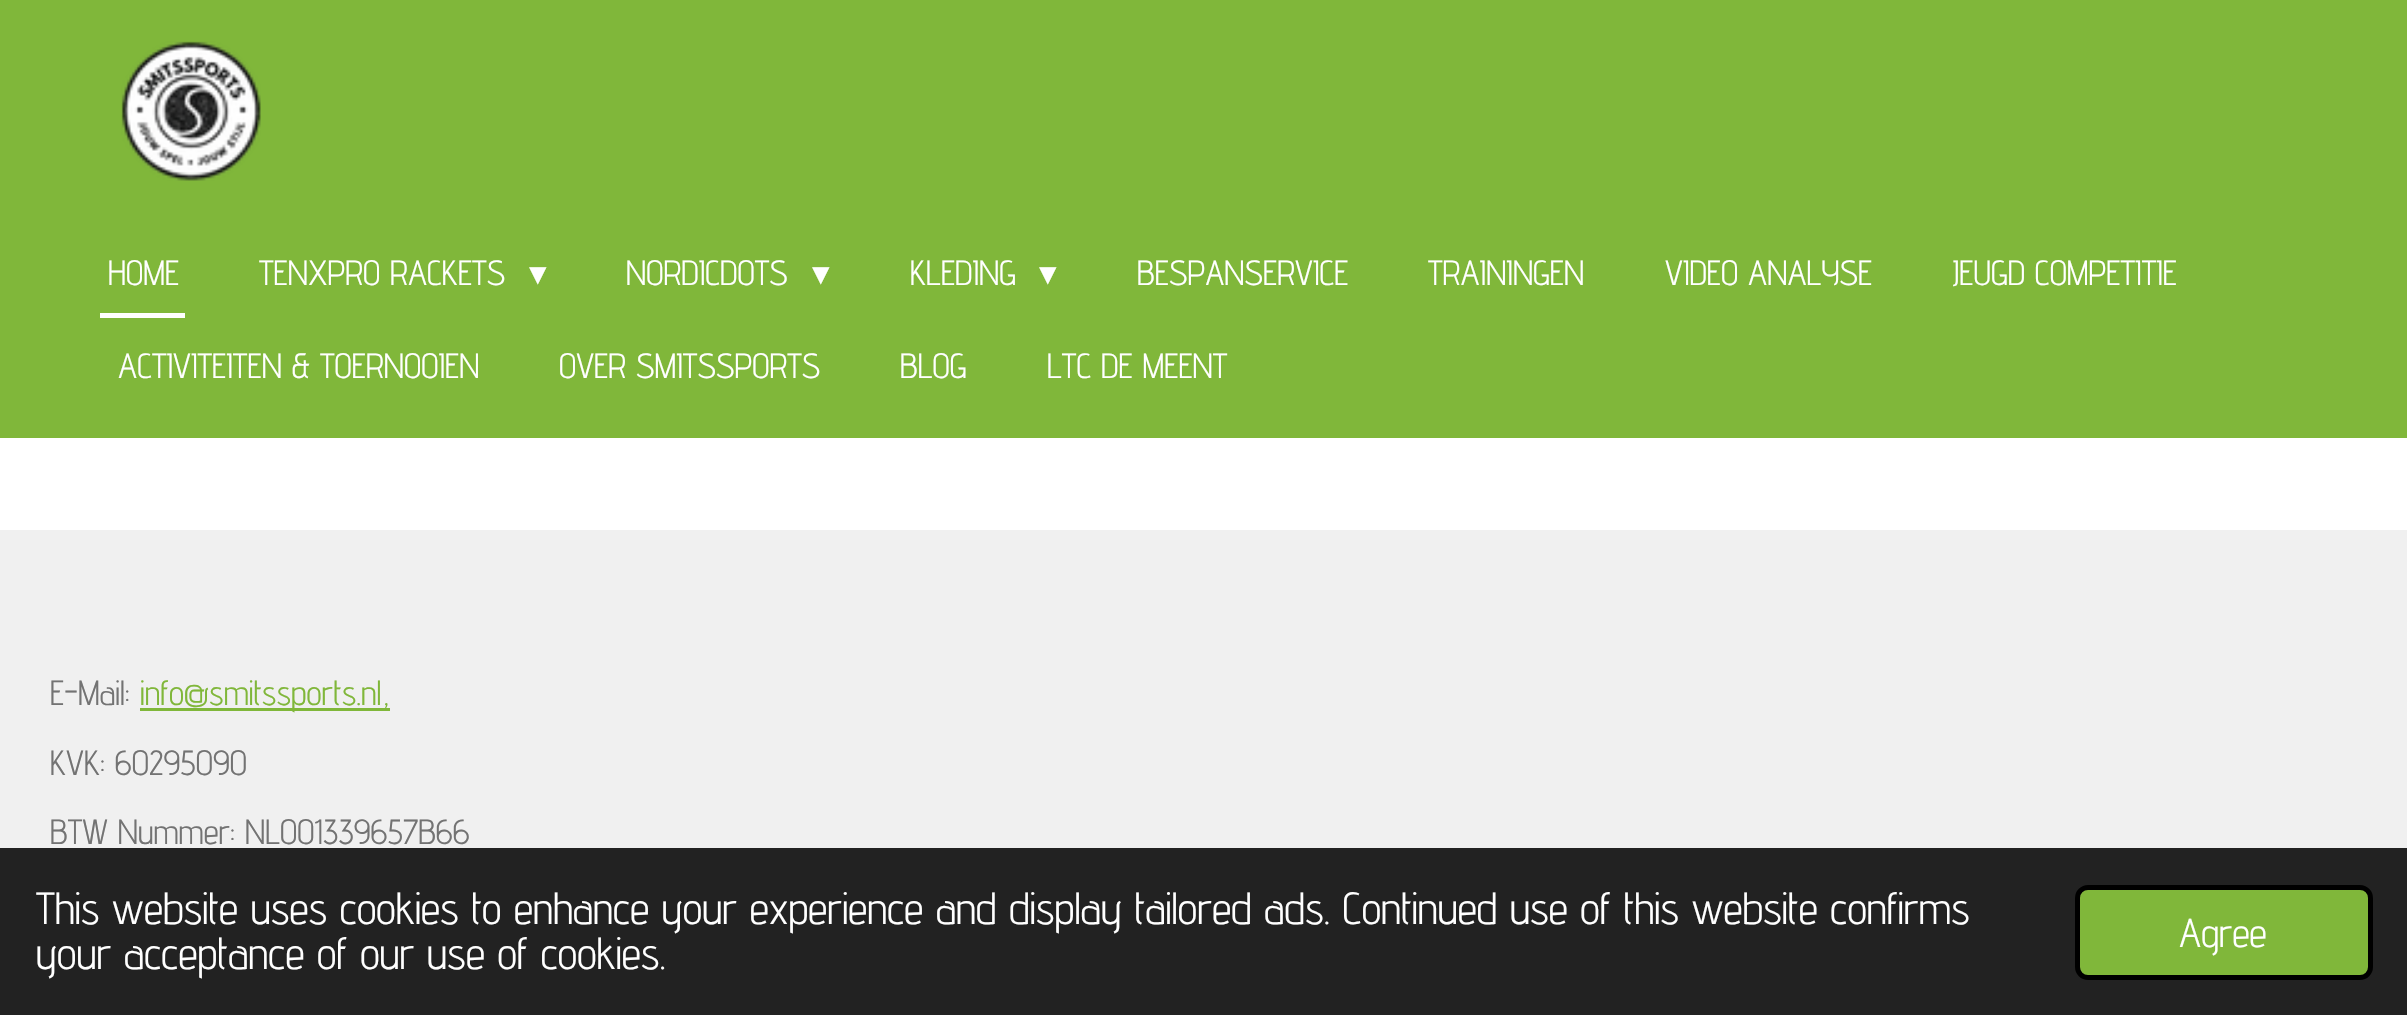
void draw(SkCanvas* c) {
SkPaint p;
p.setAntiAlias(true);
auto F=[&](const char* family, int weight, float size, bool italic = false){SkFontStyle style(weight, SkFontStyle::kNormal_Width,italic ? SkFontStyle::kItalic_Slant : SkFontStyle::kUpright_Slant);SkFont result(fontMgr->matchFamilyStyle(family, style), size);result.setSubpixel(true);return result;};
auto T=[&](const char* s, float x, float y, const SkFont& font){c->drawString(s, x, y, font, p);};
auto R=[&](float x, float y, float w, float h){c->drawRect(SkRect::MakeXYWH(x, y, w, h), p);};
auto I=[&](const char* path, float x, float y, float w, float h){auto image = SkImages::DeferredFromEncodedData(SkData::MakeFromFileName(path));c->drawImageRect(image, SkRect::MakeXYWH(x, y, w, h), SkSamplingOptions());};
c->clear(0xffffffff);
p.setColor(0xff80b73a);
R(0,0,2407,438);
I("1.png",121,41,140,140);
p.setColor(0xffffffff);
R(100,313,85,5);
auto f1 = F("Advent Pro",400,35);
T("HOME",108,285,f1);
T("TENXPRO RACKETS",259,285,f1);
auto f2 = F("DejaVu Sans",400,35);
T("▾",529,285,f2);
T("NORDICDOTS",626,285,f1);
T("▾",812,285,f2);
T("KLEDING",910,285,f1);
T("▾",1039,285,f2);
T("BESPANSERVICE",1137,285,f1);
T("TRAININGEN",1428,285,f1);
T("VIDEO ANALYSE",1665,285,f1);
T("JEUGD COMPETITIE",1952,285,f1);
T("ACTIVITEITEN & TOERNOOIEN",118,378,f1);
T("OVER SMITSSPORTS",559,378,f1);
T("BLOG",900,378,f1);
T("LTC DE MEENT",1047,378,f1);
p.setColor(0xfff0f0f0);
R(0,530,2407,318);
p.setColor(0xff737373);
T("E-Mail:",50,705,f1);
p.setColor(0xff80b73a);
R(140,708,250,3);
T("info@smitssports.nl,",140,705,f1);
p.setColor(0xff737373);
T("KVK: 60295090",50,775,f1);
T("BTW Nummer: NL001339657B66",50,844,f1);
p.setColor(0xff222222);
R(0,848,2407,167);
auto f3 = F("Advent Pro",400,45);
p.setColor(0xffffffff);
T("This website uses cookies to enhance your experience and display tailored ads. Continued use of this website confirms",36,924,f3);
T("your acceptance of our use of cookies.",36,969,f3);
p.setColor(0xff80b73a);
c->drawRoundRect(SkRect::MakeXYWH(2077.5,887.5,293,90),10.5,10.5,p);
p.setStroke(true);
p.setStrokeWidth(5);
p.setColor(0xff000000);
c->drawRoundRect(SkRect::MakeXYWH(2077.5,887.5,293,90),10.5,10.5,p);
auto f4 = F("Advent Pro",400,40.5);
p.setStroke(false);
p.setColor(0xffffffff);
T("Agree",2179,947,f4);
}
